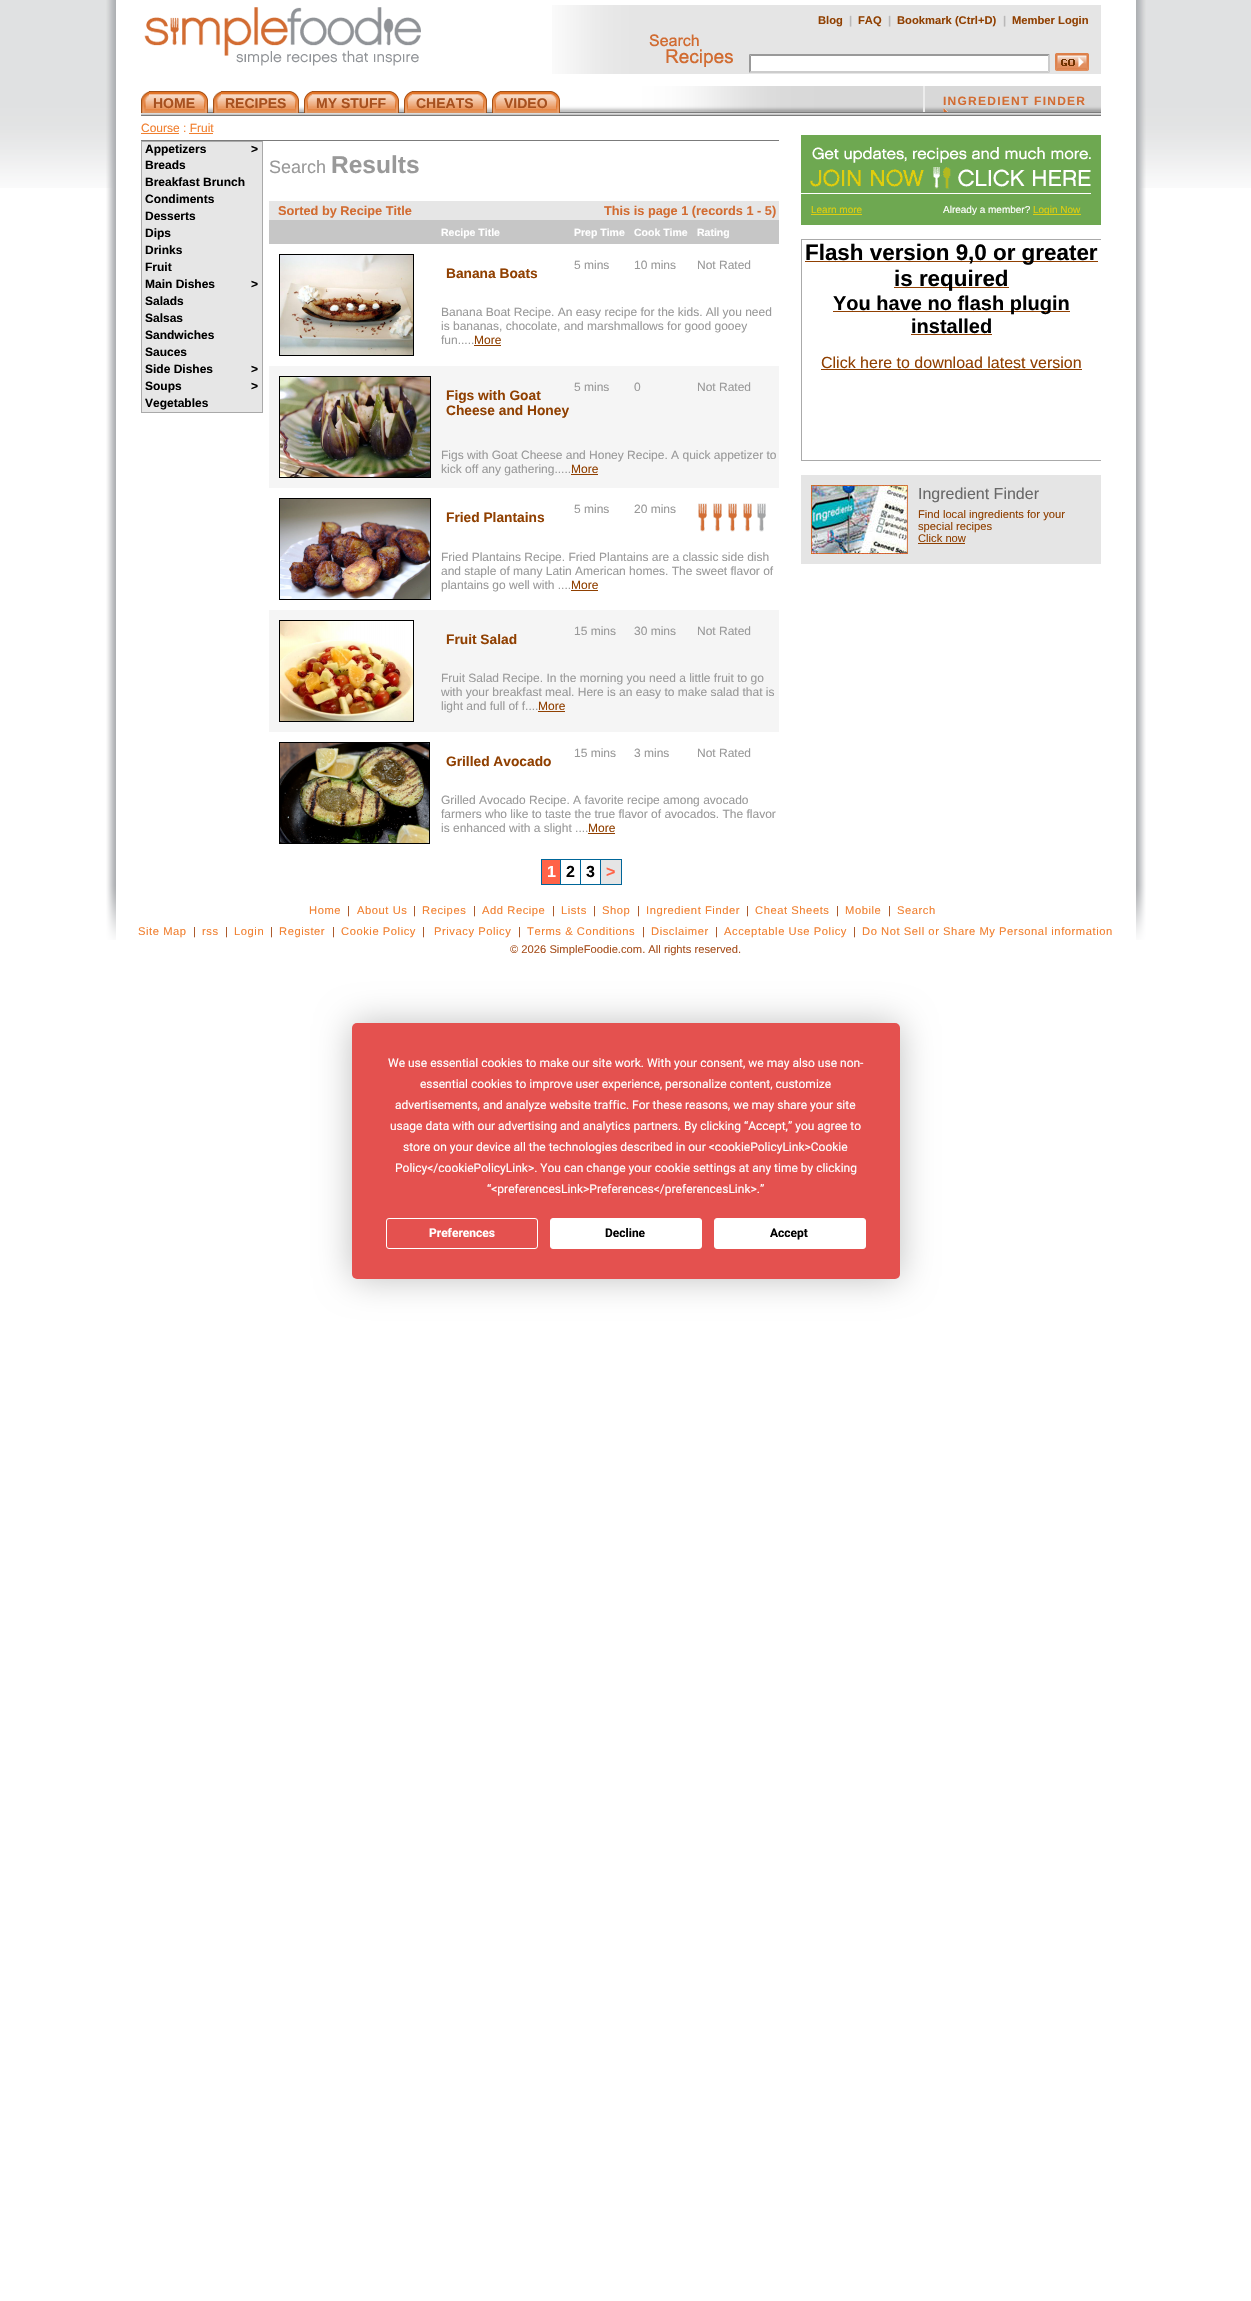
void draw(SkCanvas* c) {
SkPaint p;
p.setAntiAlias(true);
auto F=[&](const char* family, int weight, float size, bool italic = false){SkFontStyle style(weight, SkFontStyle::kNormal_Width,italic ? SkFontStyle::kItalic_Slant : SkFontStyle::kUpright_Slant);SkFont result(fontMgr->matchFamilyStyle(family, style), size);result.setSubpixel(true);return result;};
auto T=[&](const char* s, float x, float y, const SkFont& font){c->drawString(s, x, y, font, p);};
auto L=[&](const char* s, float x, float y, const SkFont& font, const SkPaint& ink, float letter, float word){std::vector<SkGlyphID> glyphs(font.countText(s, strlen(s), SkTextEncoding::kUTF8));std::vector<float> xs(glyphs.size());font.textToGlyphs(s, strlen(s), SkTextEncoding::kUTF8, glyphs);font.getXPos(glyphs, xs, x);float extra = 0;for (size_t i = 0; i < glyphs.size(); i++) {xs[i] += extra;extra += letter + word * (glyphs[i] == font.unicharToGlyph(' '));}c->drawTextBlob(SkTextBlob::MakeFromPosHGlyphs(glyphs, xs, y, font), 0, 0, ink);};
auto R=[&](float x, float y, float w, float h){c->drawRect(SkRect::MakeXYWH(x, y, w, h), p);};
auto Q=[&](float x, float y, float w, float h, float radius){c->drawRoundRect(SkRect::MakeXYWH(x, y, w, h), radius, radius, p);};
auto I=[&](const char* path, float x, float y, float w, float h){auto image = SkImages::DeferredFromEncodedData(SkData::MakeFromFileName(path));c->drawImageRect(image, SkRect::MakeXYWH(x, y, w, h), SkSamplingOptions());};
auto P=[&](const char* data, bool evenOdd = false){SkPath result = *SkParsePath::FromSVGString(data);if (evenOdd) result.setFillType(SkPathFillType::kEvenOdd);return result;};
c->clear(0xffffffff);
I("1.png",0,0,1251,188);
I("2.png",106,0,1040,885);
I("3.png",552,5,549,69);
I("4.png",144,7,277,59);
auto f1 = F("Liberation Sans",700,11.2);
p.setColor(0xff904001);
T("Blog",818,24,f1);
p.setColor(0xffb9b8b8);
T("|",849,24,f1);
p.setColor(0xff904001);
T("FAQ",858,24,f1);
p.setColor(0xffb9b8b8);
T("|",888,24,f1);
p.setColor(0xff904001);
T("Bookmark (Ctrl+D)",897,24,f1);
p.setColor(0xffb9b8b8);
T("|",1003,24,f1);
p.setColor(0xff904001);
T("Member Login",1012,24,f1);
I("5.png",649,34,84,33);
p.setColor(0xffffffff);
R(749,54,301,19);
p.setColor(0xff999999);
c->drawPath(P("M749 54h301l-2 2h-297z"),p);
p.setColor(0xffcccccc);
c->drawPath(P("M1050 54v19l-2-2v-15z"),p);
c->drawPath(P("M1050 73h-301l2-2h297z"),p);
p.setColor(0xff999999);
c->drawPath(P("M749 73v-19l2 2v15z"),p);
I("6.png",1055,53,34,18);
I("7.png",141,86,960,30);
I("8.png",141,91,8,22);
I("9.png",149,91,59,22);
auto f2 = F("Liberation Sans",700,14);
p.setColor(0xffa7501e);
T("HOME",153,108,f2);
I("10.png",213,91,8,22);
I("11.png",221,91,78,22);
T("RECIPES",225,108,f2);
I("12.png",304,91,8,22);
I("13.png",312,91,87,22);
T("MY STUFF",316,108,f2);
I("12.png",404,91,8,22);
I("14.png",412,91,75,22);
T("CHEATS",416,108,f2);
I("12.png",492,91,8,22);
I("15.png",500,91,60,22);
T("VIDEO",504,108,f2);
p.setColor(0xffececec);
R(923,86,2,26);
auto f3 = F("Liberation Sans",700,12);
p.setColor(0xffd26c32);
L("INGREDIENT FINDER",943,105,f3,p,1.25,0);
I("16.png",943,108,5,4);
p.setColor(0xff7b7b7b);
R(141,140,638,1);
auto f4 = F("Liberation Sans",400,12);
p.setColor(0xfff18030);
T("Course : Fruit",141,132,f4);
R(141,133,38,1);
R(189,133,24,1);
p.setStroke(true);
p.setStrokeWidth(1);
p.setColor(0xffa9a9a9);
c->drawRect(SkRect::MakeXYWH(141.5,141.5,121,271),p);
p.setStroke(false);
p.setColor(0xffe6e6e6);
R(142,142,120,270);
p.setColor(0xff000000);
T("Appetizers",145,153,f3);
T(">",251,153,f3);
T("Breads",145,169,f3);
T("Breakfast Brunch",145,186,f3);
T("Condiments",145,203,f3);
T("Desserts",145,220,f3);
T("Dips",145,237,f3);
T("Drinks",145,254,f3);
T("Fruit",145,271,f3);
T("Main Dishes",145,288,f3);
T(">",251,288,f3);
T("Salads",145,305,f3);
T("Salsas",145,322,f3);
T("Sandwiches",145,339,f3);
T("Sauces",145,356,f3);
T("Side Dishes",145,373,f3);
T(">",251,373,f3);
T("Soups",145,390,f3);
T(">",251,390,f3);
T("Vegetables",145,407,f3);
auto f5 = F("Liberation Sans",400,18);
p.setColor(0xff999999);
T("Search",269,173,f5);
auto f6 = F("Liberation Sans",700,24.5);
T("Results",331,173,f6);
p.setColor(0xffe6e6e6);
R(269,201,510,19);
auto f7 = F("Liberation Sans",700,12.75);
p.setColor(0xffd26c32);
T("Sorted by Recipe Title",278,215,f7);
T("This is page 1 (records 1 - 5)",604,215,f7);
p.setColor(0xffc6c6c6);
R(269,220,510,24);
auto f8 = F("Liberation Sans",700,10.5);
p.setColor(0xffffffff);
T("Recipe Title",441,236,f8);
T("Prep Time",574,236,f8);
T("Cook Time",634,236,f8);
T("Rating",697,236,f8);
p.setStroke(true);
p.setColor(0xff000000);
c->drawRect(SkRect::MakeXYWH(279.5,254.5,134,101),p);
I("17.png",280,255,133,100);
p.setStroke(false);
p.setColor(0xff999999);
T("5 mins",574,269,f4);
T("10 mins",634,269,f4);
T("Not Rated",697,269,f4);
auto f9 = F("Liberation Sans",700,13.75);
p.setColor(0xff904001);
T("Banana Boats",446,278,f9);
p.setColor(0xff999999);
T("Banana Boat Recipe. An easy recipe for the kids. All you need",441,316,f4);
T("is bananas, chocolate, and marshmallows for good gooey",441,330,f4);
T("fun.....",441,344,f4);
p.setColor(0xff904001);
T("More",474,344,f4);
R(474,345,27,1);
p.setColor(0xfff5f5f5);
R(269,366,510,122);
p.setStroke(true);
p.setColor(0xff000000);
c->drawRect(SkRect::MakeXYWH(279.5,376.5,151,101),p);
I("18.png",280,377,150,100);
p.setStroke(false);
p.setColor(0xff999999);
T("5 mins",574,391,f4);
T("0",634,391,f4);
T("Not Rated",697,391,f4);
p.setColor(0xff904001);
T("Figs with Goat",446,400,f9);
T("Cheese and Honey",446,415,f9);
p.setColor(0xff999999);
T("Figs with Goat Cheese and Honey Recipe. A quick appetizer to",441,459,f4);
T("kick off any gathering.....",441,473,f4);
p.setColor(0xff904001);
T("More",571,473,f4);
R(571,474,27,1);
p.setStroke(true);
p.setColor(0xff000000);
c->drawRect(SkRect::MakeXYWH(279.5,498.5,151,101),p);
I("19.png",280,499,150,100);
p.setStroke(false);
p.setColor(0xff999999);
T("5 mins",574,513,f4);
T("20 mins",634,513,f4);
I("20.png",698,503,68,29);
p.setColor(0xff904001);
T("Fried Plantains",446,522,f9);
p.setColor(0xff999999);
T("Fried Plantains Recipe. Fried Plantains are a classic side dish",441,561,f4);
T("and staple of many Latin American homes. The sweet flavor of",441,575,f4);
T("plantains go well with ....",441,589,f4);
p.setColor(0xff904001);
T("More",571,589,f4);
R(571,590,27,1);
p.setColor(0xfff5f5f5);
R(269,610,510,122);
p.setStroke(true);
p.setColor(0xff000000);
c->drawRect(SkRect::MakeXYWH(279.5,620.5,134,101),p);
I("21.png",280,621,133,100);
p.setStroke(false);
p.setColor(0xff999999);
T("15 mins",574,635,f4);
T("30 mins",634,635,f4);
T("Not Rated",697,635,f4);
p.setColor(0xff904001);
T("Fruit Salad",446,644,f9);
p.setColor(0xff999999);
T("Fruit Salad Recipe. In the morning you need a little fruit to go",441,682,f4);
T("with your breakfast meal. Here is an easy to make salad that is",441,696,f4);
T("light and full of f....",441,710,f4);
p.setColor(0xff904001);
T("More",538,710,f4);
R(538,711,27,1);
p.setStroke(true);
p.setColor(0xff000000);
c->drawRect(SkRect::MakeXYWH(279.5,742.5,150,101),p);
I("22.png",280,743,149,100);
p.setStroke(false);
p.setColor(0xff999999);
T("15 mins",574,757,f4);
T("3 mins",634,757,f4);
T("Not Rated",697,757,f4);
p.setColor(0xff904001);
T("Grilled Avocado",446,766,f9);
p.setColor(0xff999999);
T("Grilled Avocado Recipe. A favorite recipe among avocado",441,804,f4);
T("farmers who like to taste the true flavor of avocados. The flavor",441,818,f4);
T("is enhanced with a slight ....",441,832,f4);
p.setColor(0xff904001);
T("More",588,832,f4);
R(588,833,27,1);
p.setColor(0xffff6347);
c->drawRect(SkRect::MakeXYWH(541.5,859.5,19,25),p);
p.setStroke(true);
p.setColor(0xff006699);
c->drawRect(SkRect::MakeXYWH(541.5,859.5,19,25),p);
auto f10 = F("Liberation Sans",700,16);
p.setStroke(false);
p.setColor(0xffffffff);
T("1",547,877,f10);
p.setColor(0xff006699);
R(561,859,61,1);
R(580,859,1,26);
R(561,884,20,1);
p.setColor(0xff000000);
T("2",566,877,f10);
p.setColor(0xff006699);
R(600,859,1,26);
R(581,884,20,1);
p.setColor(0xff000000);
T("3",586,877,f10);
p.setColor(0xffe5e5e5);
R(601,860,20,24);
p.setColor(0xff006699);
R(621,859,1,26);
R(601,884,21,1);
p.setColor(0xffff6347);
T(">",606,877,f10);
p.setColor(0xff6ea851);
R(801,135,300,90);
I("23.png",810,147,281,42);
p.setColor(0xffffffff);
R(801,193,290,1);
auto f11 = F("Liberation Sans",400,10);
p.setColor(0xffdecd0f);
T("Learn more",811,213,f11);
R(811,214,51,1);
p.setColor(0xffffffff);
T("Already a member?",943,213,f11);
p.setColor(0xffdecd0f);
R(1033,214,48,1);
T("Login Now",1033,213,f11);
c->save();
c->clipRect(SkRect::MakeXYWH(801,116,300,462));
p.setStroke(true);
p.setColor(0xffaaaaaa);
c->drawRect(SkRect::MakeXYWH(801.5,239.5,301,221),p);
c->restore();
p.setStroke(false);
p.setColor(0xff904001);
R(805,261,293,1);
auto f12 = F("Liberation Sans",700,22.4);
p.setColor(0xff000000);
T("Flash version 9,0 or greater",805,260,f12);
p.setColor(0xff904001);
R(894,287,115,1);
p.setColor(0xff000000);
T("is required",894,286,f12);
p.setColor(0xff904001);
R(833,311,237,1);
auto f13 = F("Liberation Sans",700,20);
p.setColor(0xff000000);
T("You have no flash plugin",833,310,f13);
T("installed",911,333,f13);
p.setColor(0xff904001);
R(911,334,81,1);
auto f14 = F("Liberation Sans",400,16);
T("Click here to download latest version",821,368,f14);
R(821,369,261,1);
p.setColor(0xffe5e5e5);
R(801,475,300,89);
I("24.png",811,485,97,69);
p.setColor(0xff696969);
T("Ingredient Finder",918,499,f14);
auto f15 = F("Liberation Sans",400,11.2);
p.setColor(0xff904001);
T("Find local ingredients for your",918,518,f15);
T("special recipes",918,530,f15);
T("Click now",918,542,f15);
R(918,543,47,1);
I("25.png",106,885,1040,55);
p.setColor(0xfff18030);
L("Home",309,914,f15,p,.55,0);
p.setColor(0xffa7501e);
T("|",347,914,f15);
p.setColor(0xfff18030);
L("About Us",357,914,f15,p,.55,0);
p.setColor(0xffa7501e);
T("|",413,914,f15);
p.setColor(0xfff18030);
L("Recipes",422,914,f15,p,.55,0);
p.setColor(0xffa7501e);
T("|",473,914,f15);
p.setColor(0xfff18030);
L("Add Recipe",482,914,f15,p,.55,0);
p.setColor(0xffa7501e);
T("|",552,914,f15);
p.setColor(0xfff18030);
L("Lists",561,914,f15,p,.55,0);
p.setColor(0xffa7501e);
T("|",593,914,f15);
p.setColor(0xfff18030);
L("Shop",602,914,f15,p,.55,0);
p.setColor(0xffa7501e);
T("|",637,914,f15);
p.setColor(0xfff18030);
L("Ingredient Finder",646,914,f15,p,.55,0);
p.setColor(0xffa7501e);
T("|",746,914,f15);
p.setColor(0xfff18030);
L("Cheat Sheets",755,914,f15,p,.55,0);
p.setColor(0xffa7501e);
T("|",836,914,f15);
p.setColor(0xfff18030);
L("Mobile",845,914,f15,p,.55,0);
p.setColor(0xffa7501e);
T("|",888,914,f15);
p.setColor(0xfff18030);
L("Search",897,914,f15,p,.55,0);
L("Site Map",138,935,f15,p,.55,0);
p.setColor(0xffa7501e);
T("|",193,935,f15);
p.setColor(0xfff18030);
L("rss",202,935,f15,p,.55,0);
p.setColor(0xffa7501e);
T("|",225,935,f15);
p.setColor(0xfff18030);
L("Login",234,935,f15,p,.55,0);
p.setColor(0xffa7501e);
T("|",270,935,f15);
p.setColor(0xfff18030);
L("Register",279,935,f15,p,.55,0);
p.setColor(0xffa7501e);
T("|",332,935,f15);
p.setColor(0xfff18030);
L("Cookie Policy",341,935,f15,p,.55,0);
p.setColor(0xffa7501e);
T("|",422,935,f15);
p.setColor(0xfff18030);
L("Privacy Policy",434,935,f15,p,.55,0);
p.setColor(0xffa7501e);
T("|",518,935,f15);
p.setColor(0xfff18030);
L("Terms & Conditions",527,935,f15,p,.55,0);
p.setColor(0xffa7501e);
T("|",642,935,f15);
p.setColor(0xfff18030);
L("Disclaimer",651,935,f15,p,.55,0);
p.setColor(0xffa7501e);
T("|",715,935,f15);
p.setColor(0xfff18030);
L("Acceptable Use Policy",724,935,f15,p,.55,0);
p.setColor(0xffa7501e);
T("|",853,935,f15);
p.setColor(0xfff18030);
L("Do Not Sell or Share My Personal information",862,935,f15,p,.55,0);
p.setColor(0xffa7501e);
T("© 2026 SimpleFoodie.com. All rights reserved.",510,953,f15);
p.setColor(0x40000000);
p.setMaskFilter(SkMaskFilter::MakeBlur(kNormal_SkBlurStyle, 17.5));
c->drawRoundRect(SkRect::MakeXYWH(352,1023,548,256),5,5,p);
p.setMaskFilter(nullptr);
p.setColor(0xffe4514f);
Q(352,1023,548,256,5);
auto f16 = F("Roboto",400,12);
p.setColor(0xffffffff);
T("We use essential cookies to make our site work. With your consent, we may also use non-",388,1067,f16);
T("essential cookies to improve user experience, personalize content, customize",420,1088,f16);
T("advertisements, and analyze website traffic. For these reasons, we may share your site",395,1109,f16);
T("usage data with our advertising and analytics partners. By clicking “Accept,” you agree to",390,1130,f16);
T("store on your device all the technologies described in our <cookiePolicyLink>Cookie",403,1151,f16);
T("Policy</cookiePolicyLink>. You can change your cookie settings at any time by clicking",395,1172,f16);
T("“<preferencesLink>Preferences</preferencesLink>.”",487,1193,f16);
p.setStroke(true);
c->drawRoundRect(SkRect::MakeXYWH(386.5,1218.5,151,30),2.5,2.5,p);
auto f17 = F("Roboto",700,12);
p.setStroke(false);
T("Preferences",429,1237,f17);
c->drawRoundRect(SkRect::MakeXYWH(550.5,1218.5,151,30),2.5,2.5,p);
p.setStroke(true);
c->drawRoundRect(SkRect::MakeXYWH(550.5,1218.5,151,30),2.5,2.5,p);
p.setStroke(false);
p.setColor(0xff000000);
T("Decline",605,1237,f17);
p.setColor(0xffffffff);
c->drawRoundRect(SkRect::MakeXYWH(714.5,1218.5,151,30),2.5,2.5,p);
p.setStroke(true);
c->drawRoundRect(SkRect::MakeXYWH(714.5,1218.5,151,30),2.5,2.5,p);
p.setStroke(false);
p.setColor(0xff000000);
T("Accept",770,1237,f17);
}
